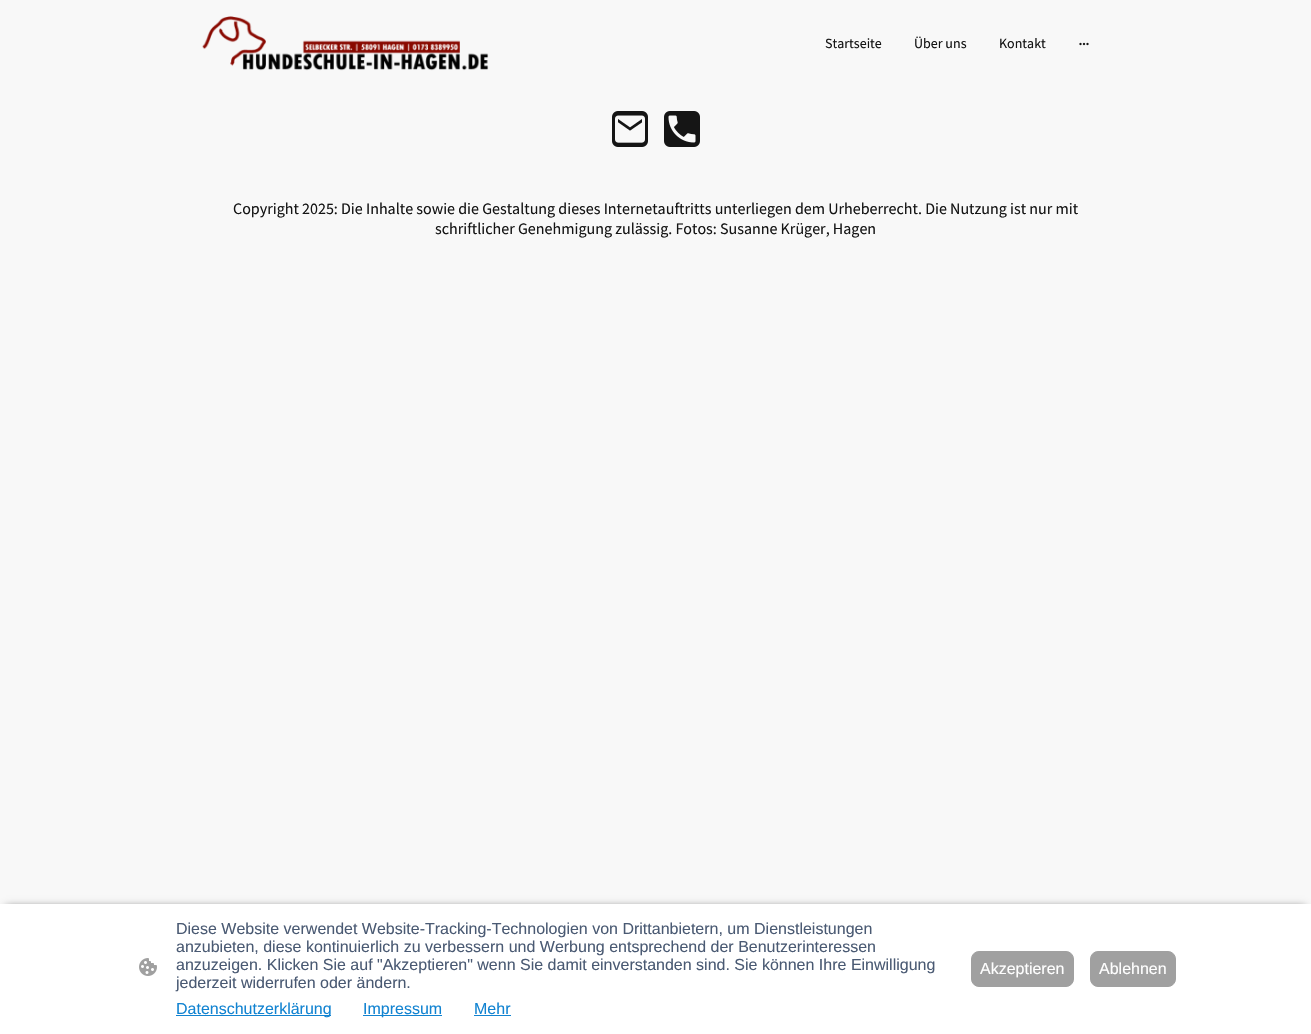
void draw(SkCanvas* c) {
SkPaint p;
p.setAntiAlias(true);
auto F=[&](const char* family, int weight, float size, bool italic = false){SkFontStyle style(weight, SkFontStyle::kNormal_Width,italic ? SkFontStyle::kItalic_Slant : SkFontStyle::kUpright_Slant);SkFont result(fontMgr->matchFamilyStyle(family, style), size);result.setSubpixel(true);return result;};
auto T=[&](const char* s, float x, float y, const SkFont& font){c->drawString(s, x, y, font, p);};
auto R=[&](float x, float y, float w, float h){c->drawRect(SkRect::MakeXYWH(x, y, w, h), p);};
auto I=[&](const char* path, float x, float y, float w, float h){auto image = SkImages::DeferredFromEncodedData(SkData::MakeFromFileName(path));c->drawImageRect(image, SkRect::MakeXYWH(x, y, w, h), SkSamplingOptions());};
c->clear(0xfff8f8f8);
I("1.png",202,16,287,55);
auto f1 = F("Source Sans Pro",400,14);
p.setColor(0xff151515);
T("Startseite",825,48,f1);
T("Über uns",914,48,f1);
T("Kontakt",999,48,f1);
I("2.png",1079,42,10,4);
I("3.png",612,111,36,36);
I("4.png",664,111,36,36);
auto f2 = F("Source Sans Pro",400,16);
T("Copyright 2025: Die Inhalte sowie die Gestaltung dieses Internetauftritts unterliegen dem Urheberrecht. Die Nutzung ist nur mit",233,214,f2);
T("schriftlicher Genehmigung zulässig. Fotos: Susanne Krüger, Hagen",435,234,f2);
p.setColor(0xa1000000);
p.setMaskFilter(SkMaskFilter::MakeBlur(kNormal_SkBlurStyle, 4));
c->drawRect(SkRect::MakeXYWH(6,907,1299,118),p);
p.setMaskFilter(nullptr);
p.setColor(0xffffffff);
R(0,904,1311,130);
I("5.png",139,958,18,18);
auto f3 = F("Liberation Sans",400,16);
p.setColor(0xff4a5a73);
T("Diese Website verwendet Website-Tracking-Technologien von Drittanbietern, um Dienstleistungen",176,934,f3);
T("anzubieten, diese kontinuierlich zu verbessern und Werbung entsprechend der Benutzerinteressen",176,952,f3);
T("anzuzeigen. Klicken Sie auf \"Akzeptieren\" wenn Sie damit einverstanden sind. Sie können Ihre Einwilligung",176,970,f3);
T("jederzeit widerrufen oder ändern.",176,988,f3);
p.setColor(0xff1183d1);
R(176,1015,155,1);
T("Datenschutzerklärung",176,1014,f3);
R(363,1015,79,1);
T("Impressum",363,1014,f3);
T("Mehr",474,1014,f3);
R(474,1015,37,1);
p.setColor(0xffa0a0a0);
c->drawRoundRect(SkRect::MakeXYWH(971.5,951.5,102,35),7.5,7.5,p);
p.setStroke(true);
p.setStrokeWidth(1);
c->drawRoundRect(SkRect::MakeXYWH(971.5,951.5,102,35),7.5,7.5,p);
p.setStroke(false);
p.setColor(0xffffffff);
T("Akzeptieren",980,974,f3);
p.setColor(0xffa0a0a0);
c->drawRoundRect(SkRect::MakeXYWH(1090.5,951.5,85,35),7.5,7.5,p);
p.setStroke(true);
c->drawRoundRect(SkRect::MakeXYWH(1090.5,951.5,85,35),7.5,7.5,p);
p.setStroke(false);
p.setColor(0xffffffff);
T("Ablehnen",1099,974,f3);
}
